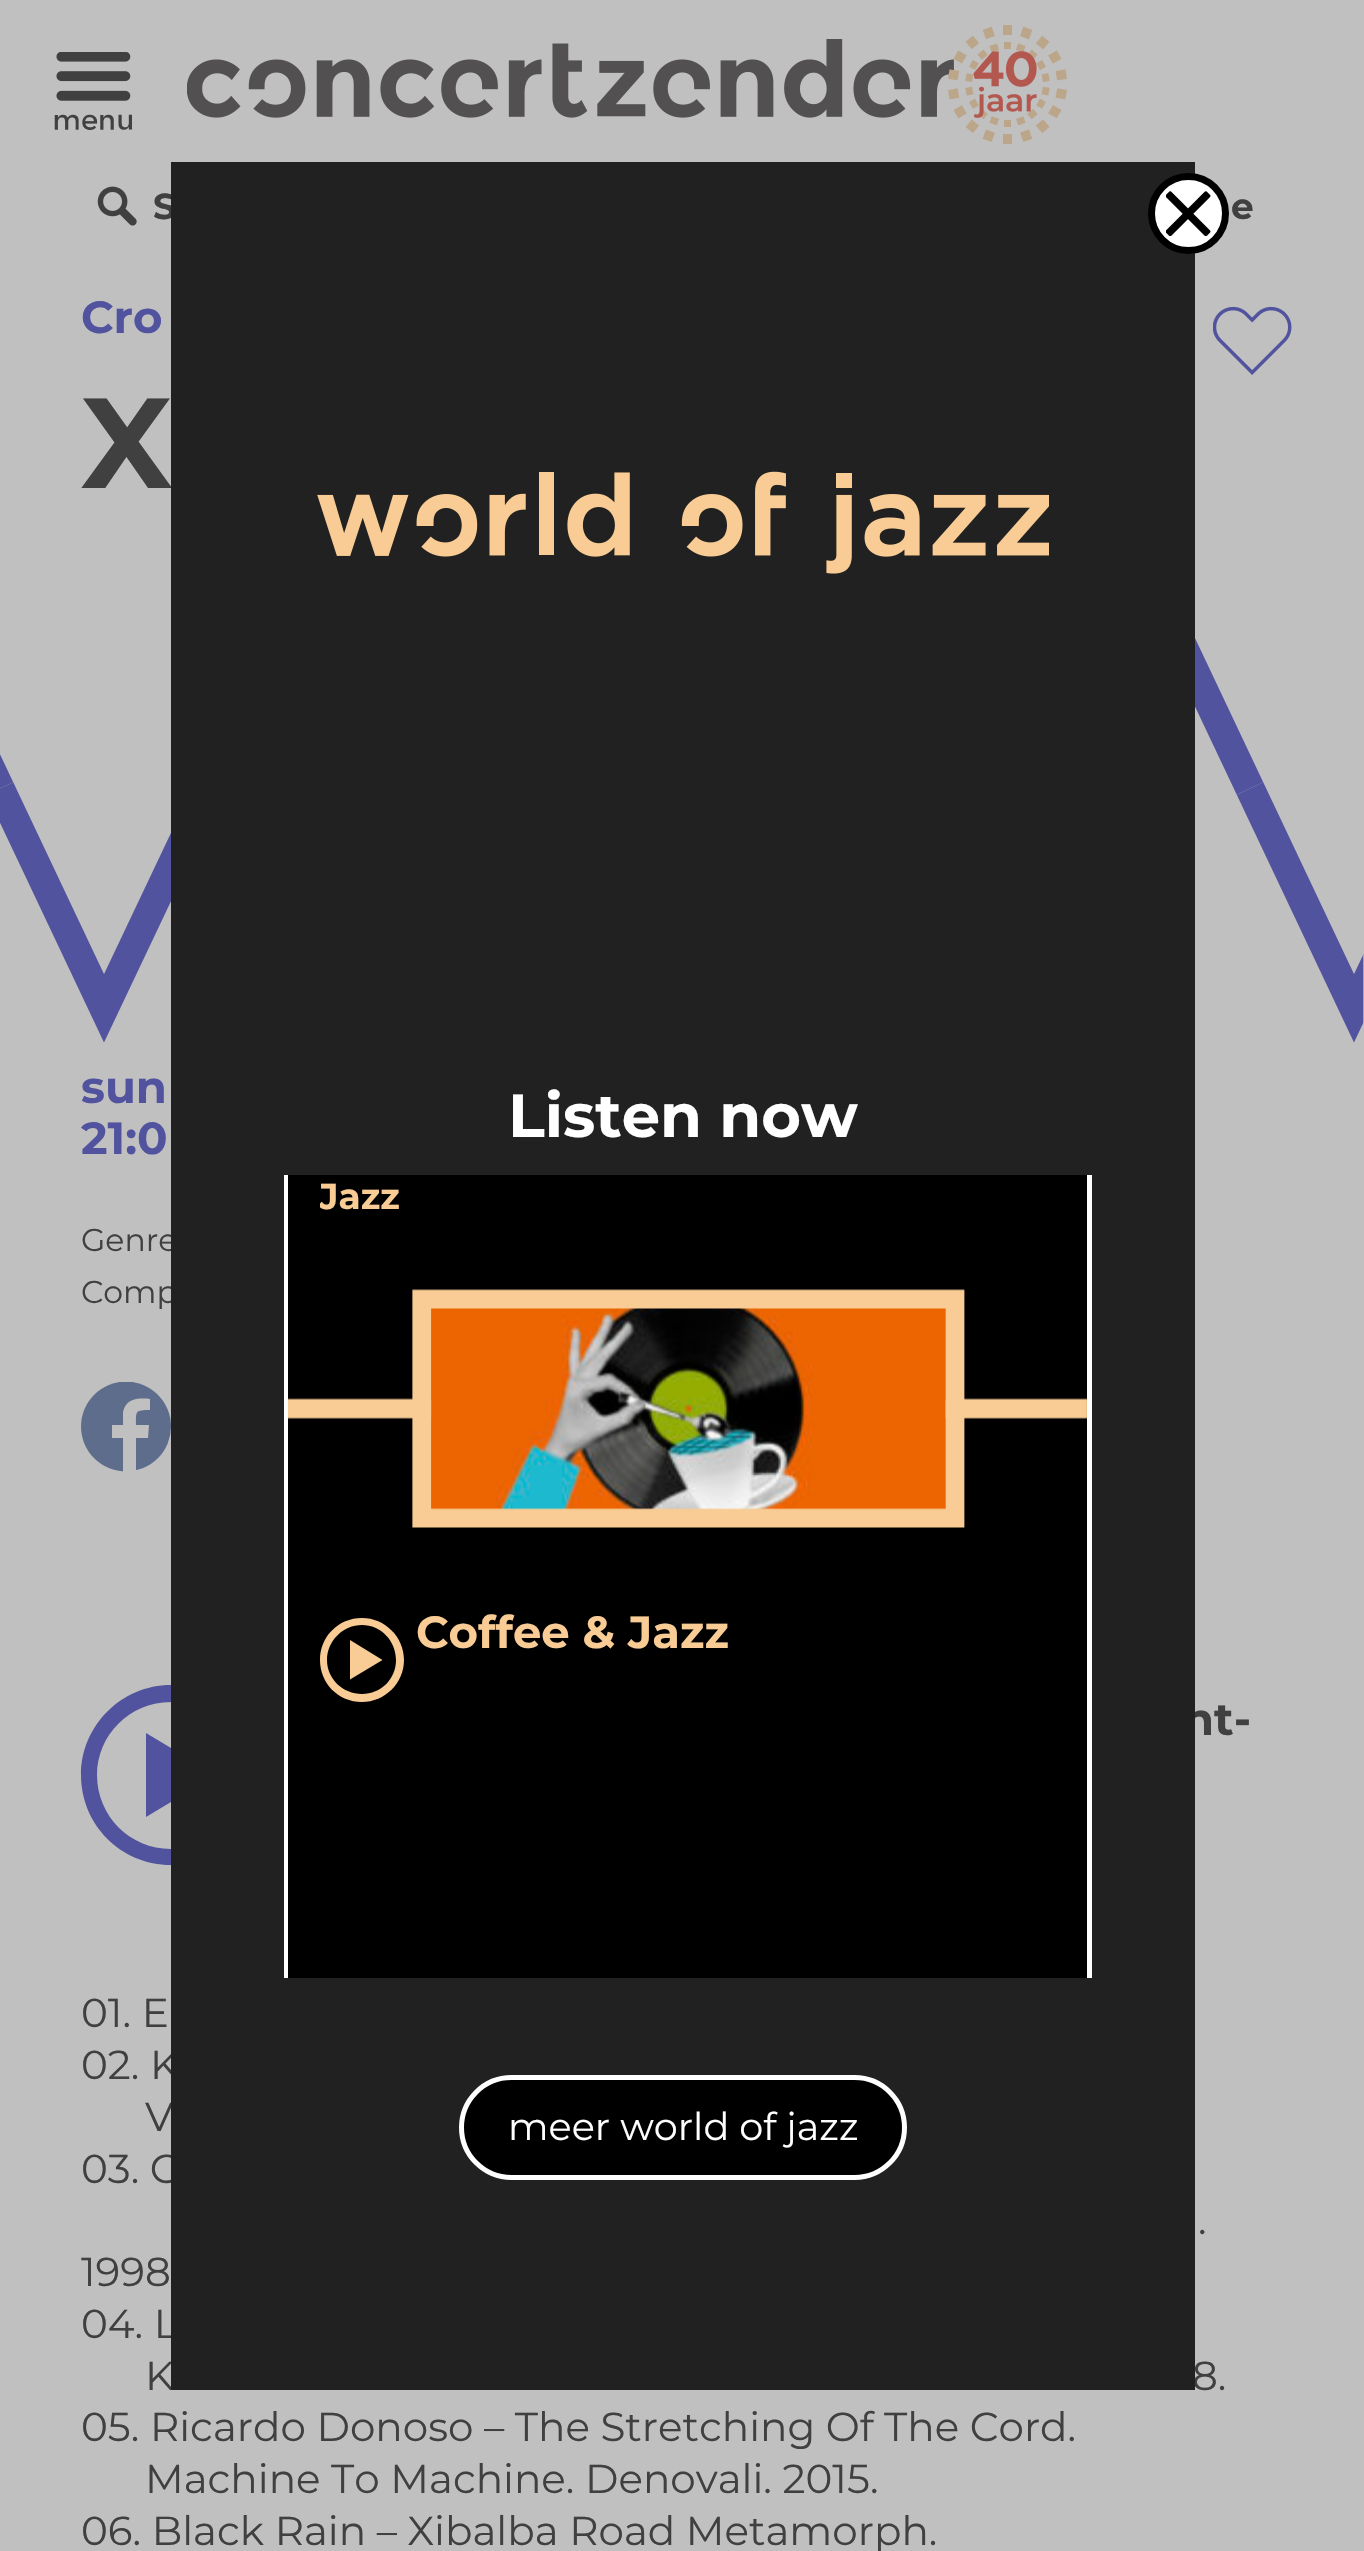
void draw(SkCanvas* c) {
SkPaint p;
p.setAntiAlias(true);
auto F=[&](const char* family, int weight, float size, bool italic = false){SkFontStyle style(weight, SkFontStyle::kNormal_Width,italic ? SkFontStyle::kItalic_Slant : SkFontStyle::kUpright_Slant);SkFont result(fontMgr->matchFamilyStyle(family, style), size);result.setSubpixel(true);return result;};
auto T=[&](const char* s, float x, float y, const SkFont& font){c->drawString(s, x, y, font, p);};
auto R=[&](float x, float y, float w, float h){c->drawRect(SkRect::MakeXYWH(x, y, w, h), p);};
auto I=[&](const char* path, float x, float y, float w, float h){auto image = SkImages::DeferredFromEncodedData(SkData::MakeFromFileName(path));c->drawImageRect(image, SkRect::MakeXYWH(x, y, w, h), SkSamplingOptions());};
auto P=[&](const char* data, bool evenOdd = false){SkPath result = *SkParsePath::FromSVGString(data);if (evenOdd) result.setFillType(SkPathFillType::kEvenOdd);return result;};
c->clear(0xffc0c0c0);
I("1.png",54,52,78,78);
I("2.png",187,39,767,79);
I("3.png",948,25,119,119);
I("4.png",97,186,40,40);
auto f1 = F("Montserrat",700,36);
p.setColor(0xff404040);
T("S",153,219,f1);
T("e",1231,219,f1);
auto f2 = F("Montserrat",700,45);
p.setColor(0xff51539e);
T("Cro",81,333,f2);
I("5.png",1213,306,79,69);
auto f3 = F("Montserrat",700,128);
p.setColor(0xff404040);
T("X",81,488,f3);
I("6.png",0,638,1364,405);
p.setColor(0xff51539e);
T("sun",81,1103,f2);
T("21:0",81,1154,f2);
auto f4 = F("Montserrat",400,31.5);
p.setColor(0xff404040);
T("Genre",81,1251,f4);
T("Comp",81,1303,f4);
c->save();
c->clipRect(SkRect::MakeXYWH(81,1382,90,90));
p.setColor(0xff5f6d8c);
c->drawCircle(126,1426.5,45,p);
c->restore();
p.setColor(0xffc0c0c0);
c->drawPath(P("M136 1472v-34h12l1-13h-13c0-14-1-15 14-15v-11c-11-1-24-1-27 13v13h-11v13h11v34z"),p);
p.setColor(0xff51539e);
c->drawPath(P("M146 1817v-84l70 42z"),p);
c->drawPath(P("M171 1702c41 0 74 33 74 73c0 41-33 74-74 74c-41 0-74-33-74-74c0-40 33-73 74-73m0-17c-50 0-90 41-90 90c0 50 40 90 90 90c50 0 90-40 90-90c0-49-40-90-90-90z"),p);
p.setColor(0xff404040);
T("nt-",1183,1735,f2);
auto f5 = F("Montserrat",400,40.5);
T("01. E",81,2027,f5);
T("02. K",81,2079,f5);
T("V",145,2131,f5);
T("03. C",81,2183,f5);
T(".",1198,2234,f5);
T("1998",81,2286,f5);
T("04. L",81,2338,f5);
T("K",145,2390,f5);
T("8.",1192,2390,f5);
T("05. Ricardo Donoso – The Stretching Of The Cord.",81,2441,f5);
T("Machine To Machine. Denovali. 2015.",145,2493,f5);
T("06. Black Rain – Xibalba Road Metamorph.",81,2545,f5);
p.setColor(0xff212121);
R(171,162,1024,2228);
p.setColor(0xffffffff);
c->drawCircle(1188.5,213.5,37,p);
p.setStroke(true);
p.setStrokeWidth(7);
p.setColor(0xff000000);
c->drawCircle(1188.5,213.5,37,p);
I("7.png",1166,191,45,45);
I("8.png",317,471,732,103);
auto f6 = F("Montserrat",700,60.75);
p.setStroke(false);
p.setColor(0xffffffff);
T("Listen now",508,1137,f6);
R(1087,1175,5,803);
R(284,1175,4,803);
p.setColor(0xff000000);
R(288,1175,799,803);
c->save();
c->clipRect(SkRect::MakeXYWH(320,1175,677,45));
p.setColor(0xfff8cc94);
T("Jazz",319,1209,f1);
c->restore();
I("9.png",288,1289,799,239);
c->drawPath(P("M350 1679.5v-39.5l32.5 20z"),p);
c->drawPath(P("M362 1625c19 0 34 16 34 35c0 19-15 34-34 34c-19 0-35-15-35-34c0-19 16-35 35-35m0-7c-24 0-42 19-42 42c0 23 18 42 42 42c23 0 42-19 42-42c0-23-19-42-42-42z"),p);
T("Coffee & Jazz",416,1648,f2);
p.setColor(0xff000000);
c->drawRoundRect(SkRect::MakeXYWH(461.5,2077.5,443,100),50,50,p);
p.setStroke(true);
p.setStrokeWidth(5);
p.setColor(0xffffffff);
c->drawRoundRect(SkRect::MakeXYWH(461.5,2077.5,443,100),50,50,p);
auto f7 = F("Montserrat",400,38.25);
p.setStroke(false);
T("meer world of jazz",508,2140,f7);
}
